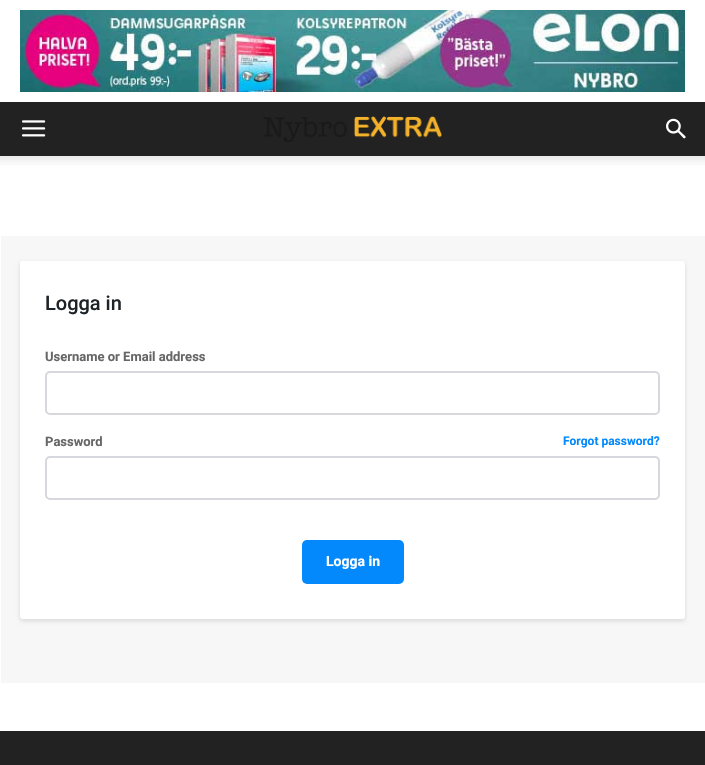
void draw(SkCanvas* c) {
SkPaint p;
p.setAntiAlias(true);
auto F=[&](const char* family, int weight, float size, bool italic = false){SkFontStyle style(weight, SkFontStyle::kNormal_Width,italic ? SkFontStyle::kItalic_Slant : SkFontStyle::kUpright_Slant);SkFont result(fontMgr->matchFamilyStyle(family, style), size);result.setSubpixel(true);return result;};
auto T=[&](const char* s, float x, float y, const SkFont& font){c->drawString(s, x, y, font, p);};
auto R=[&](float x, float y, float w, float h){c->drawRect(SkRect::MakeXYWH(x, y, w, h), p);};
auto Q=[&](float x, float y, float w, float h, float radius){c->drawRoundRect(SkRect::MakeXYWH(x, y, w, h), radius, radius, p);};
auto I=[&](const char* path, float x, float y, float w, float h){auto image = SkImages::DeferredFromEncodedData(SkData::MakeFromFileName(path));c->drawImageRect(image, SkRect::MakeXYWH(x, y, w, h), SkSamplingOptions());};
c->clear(0xffffffff);
I("1.png",20,10,665,82);
p.setColor(0xff222222);
R(0,102,705,54);
I("2.png",22,120,24,17);
I("3.png",263,116,179,26);
I("4.png",666,118,20,21);
I("5.png",0,156,705,9);
p.setColor(0xfff7f7f7);
R(1,236,704,447);
p.setColor(0x1f000000);
p.setMaskFilter(SkMaskFilter::MakeBlur(kNormal_SkBlurStyle, 2));
c->drawRoundRect(SkRect::MakeXYWH(20,263,665,358),3,3,p);
p.setMaskFilter(nullptr);
p.setColor(0xffffffff);
Q(20,261,665,358,3);
auto f1 = F("Roboto",500,20);
p.setColor(0xff1d2327);
T("Logga in",45,310,f1);
auto f2 = F("Roboto",700,13);
p.setColor(0xff666666);
T("Username or Email address",45,361,f2);
p.setStroke(true);
p.setStrokeWidth(2);
p.setColor(0xffd7d8de);
c->drawRoundRect(SkRect::MakeXYWH(46,372,613,42),4,4,p);
p.setStroke(false);
p.setColor(0xff666666);
T("Password",45,446,f2);
auto f3 = F("Roboto",700,12);
p.setColor(0xff0489fc);
T("Forgot password?",563,445,f3);
p.setStroke(true);
p.setColor(0xffd7d8de);
c->drawRoundRect(SkRect::MakeXYWH(46,457,613,42),4,4,p);
p.setStroke(false);
p.setColor(0xff0489fc);
Q(302,540,102,44,5);
auto f4 = F("Roboto",700,14);
p.setColor(0xffffffff);
T("Logga in",326,566,f4);
p.setColor(0xff222222);
R(0,731,705,34);
}
